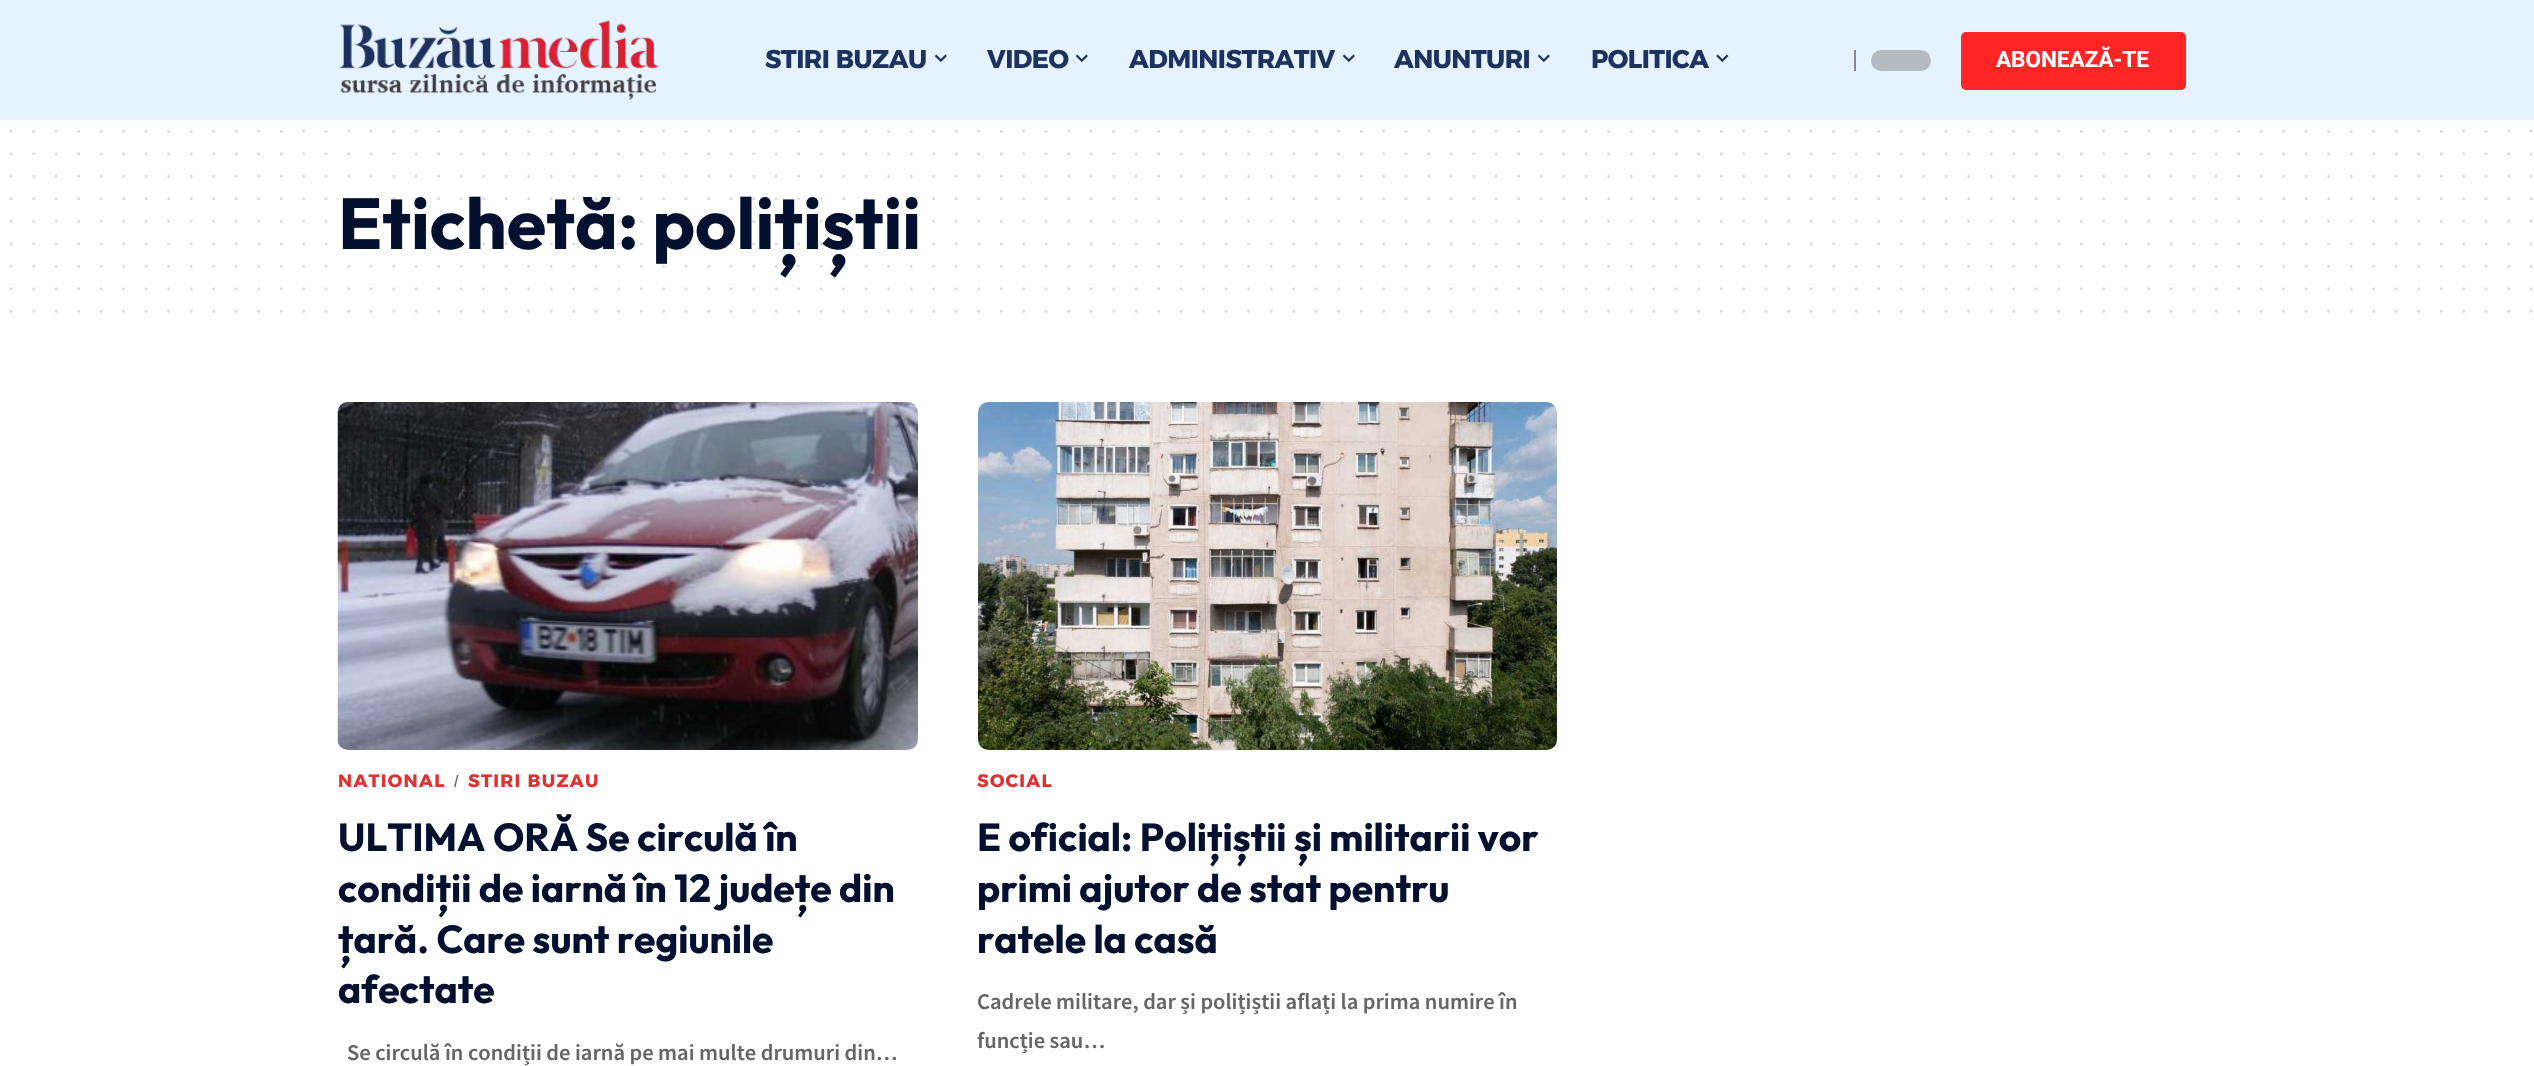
void draw(SkCanvas* c) {
SkPaint p;
p.setAntiAlias(true);
auto F=[&](const char* family, int weight, float size, bool italic = false){SkFontStyle style(weight, SkFontStyle::kNormal_Width,italic ? SkFontStyle::kItalic_Slant : SkFontStyle::kUpright_Slant);SkFont result(fontMgr->matchFamilyStyle(family, style), size);result.setSubpixel(true);return result;};
auto T=[&](const char* s, float x, float y, const SkFont& font){c->drawString(s, x, y, font, p);};
auto L=[&](const char* s, float x, float y, const SkFont& font, const SkPaint& ink, float letter, float word){std::vector<SkGlyphID> glyphs(font.countText(s, strlen(s), SkTextEncoding::kUTF8));std::vector<float> xs(glyphs.size());font.textToGlyphs(s, strlen(s), SkTextEncoding::kUTF8, glyphs);font.getXPos(glyphs, xs, x);float extra = 0;for (size_t i = 0; i < glyphs.size(); i++) {xs[i] += extra;extra += letter + word * (glyphs[i] == font.unicharToGlyph(' '));}c->drawTextBlob(SkTextBlob::MakeFromPosHGlyphs(glyphs, xs, y, font), 0, 0, ink);};
auto R=[&](float x, float y, float w, float h){c->drawRect(SkRect::MakeXYWH(x, y, w, h), p);};
auto Q=[&](float x, float y, float w, float h, float radius){c->drawRoundRect(SkRect::MakeXYWH(x, y, w, h), radius, radius, p);};
auto I=[&](const char* path, float x, float y, float w, float h){auto image = SkImages::DeferredFromEncodedData(SkData::MakeFromFileName(path));c->drawImageRect(image, SkRect::MakeXYWH(x, y, w, h), SkSamplingOptions());};
auto P=[&](const char* data, bool evenOdd = false){SkPath result = *SkParsePath::FromSVGString(data);if (evenOdd) result.setFillType(SkPathFillType::kEvenOdd);return result;};
c->clear(0xffffffff);
p.setColor(0xffe5f2ff);
R(0,0,2534,120);
I("1.png",338,20,321,80);
auto f1 = F("Alexandria",700,25.5);
p.setColor(0xff1e3261);
L("STIRI BUZAU",765,68,f1,p,-.5,0);
I("2.png",934,54,13,8);
L("VIDEO",987,68,f1,p,-.5,0);
I("2.png",1075,54,13,8);
L("ADMINISTRATIV",1129,68,f1,p,-.5,0);
I("2.png",1342,54,13,8);
L("ANUNTURI",1394,68,f1,p,-.5,0);
I("2.png",1537,54,13,8);
L("POLITICA",1591,68,f1,p,-.5,0);
I("3.png",1716,54,13,8);
p.setColor(0xff888888);
R(1854,50,2,21);
p.setColor(0xffb3bac0);
Q(1871,50,60,21,10.5);
p.setColor(0xffff2525);
Q(1961,32,225,58,5);
auto f2 = F("Roboto",700,22.5);
p.setColor(0xffffffff);
T("ABONEAZĂ-TE",1996,67,f2);
p.setStroke(true);
p.setStrokeWidth(3);
p.setStrokeCap(SkPaint::kRound_Cap);
p.setColor(0xffd9dbe0);
p.setPathEffect(SkDashPathEffect::Make({{0,22.5f}}, 0));
c->drawPath(P("M11.2 131.2h2520.4"),p);
p.setPathEffect(nullptr);
p.setPathEffect(SkDashPathEffect::Make({{0,22.5f}}, 0));
c->drawPath(P("M11.2 153.8h2520.4"),p);
p.setPathEffect(nullptr);
p.setPathEffect(SkDashPathEffect::Make({{0,22.5f}}, 0));
c->drawPath(P("M11.2 176.2h2520.4"),p);
p.setPathEffect(nullptr);
auto f3 = F("Outfit",700,72);
p.setStroke(false);
p.setColor(0xff04102f);
T("Etichetă: polițiștii",338,249,f3);
p.setStroke(true);
p.setColor(0x2604102f);
p.setPathEffect(SkDashPathEffect::Make({{0,22.5f}}, 0));
c->drawPath(P("M11.2 198.8h2520.4"),p);
p.setPathEffect(nullptr);
p.setPathEffect(SkDashPathEffect::Make({{0,22.5f}}, 0));
c->drawPath(P("M11.2 221.2h2520.4"),p);
p.setPathEffect(nullptr);
p.setPathEffect(SkDashPathEffect::Make({{0,22.5f}}, 0));
c->drawPath(P("M11.2 243.8h2520.4"),p);
p.setPathEffect(nullptr);
p.setPathEffect(SkDashPathEffect::Make({{0,22.5f}}, 0));
c->drawPath(P("M11.2 266.2h2520.4"),p);
p.setPathEffect(nullptr);
p.setColor(0xffd9dbe0);
p.setPathEffect(SkDashPathEffect::Make({{0,22.5f}}, 0));
c->drawPath(P("M11.2 288.8h2520.4"),p);
p.setPathEffect(nullptr);
p.setPathEffect(SkDashPathEffect::Make({{0,22.5f}}, 0));
c->drawPath(P("M11.2 311.2h2520.4"),p);
p.setPathEffect(nullptr);
I("4.png",337,402,581,348);
auto f4 = F("Alexandria",700,18);
p.setStroke(false);
p.setColor(0xffdd3333);
L("NATIONAL",338,787,f4,p,1.25,0);
p.setColor(0xff666666);
c->drawPath(P("M457 775h1.5l-3 12h-1.5z"),p);
p.setColor(0xffdd3333);
L("STIRI BUZAU",468,787,f4,p,1.25,0);
auto f5 = F("Outfit",700,39);
p.setColor(0xff04102f);
T("ULTIMA ORĂ Se circulă în",338,851,f5);
T("condiții de iarnă în 12 județe din",338,902,f5);
T("țară. Care sunt regiunile",338,953,f5);
T("afectate",338,1003,f5);
auto f6 = F("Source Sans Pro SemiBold",600,22.5);
p.setColor(0xff666666);
T("Se circulă în condiții de iarnă pe mai multe drumuri din…",347,1060,f6);
I("5.png",978,402,579,348);
p.setColor(0xffdd3333);
L("SOCIAL",977,787,f4,p,1.25,0);
p.setColor(0xff04102f);
T("E oficial: Polițiștii și militarii vor",977,851,f5);
T("primi ajutor de stat pentru",977,902,f5);
T("ratele la casă",977,953,f5);
p.setColor(0xff666666);
T("Cadrele militare, dar și polițiștii aflați la prima numire în",977,1009,f6);
T("funcție sau…",977,1048,f6);
}
